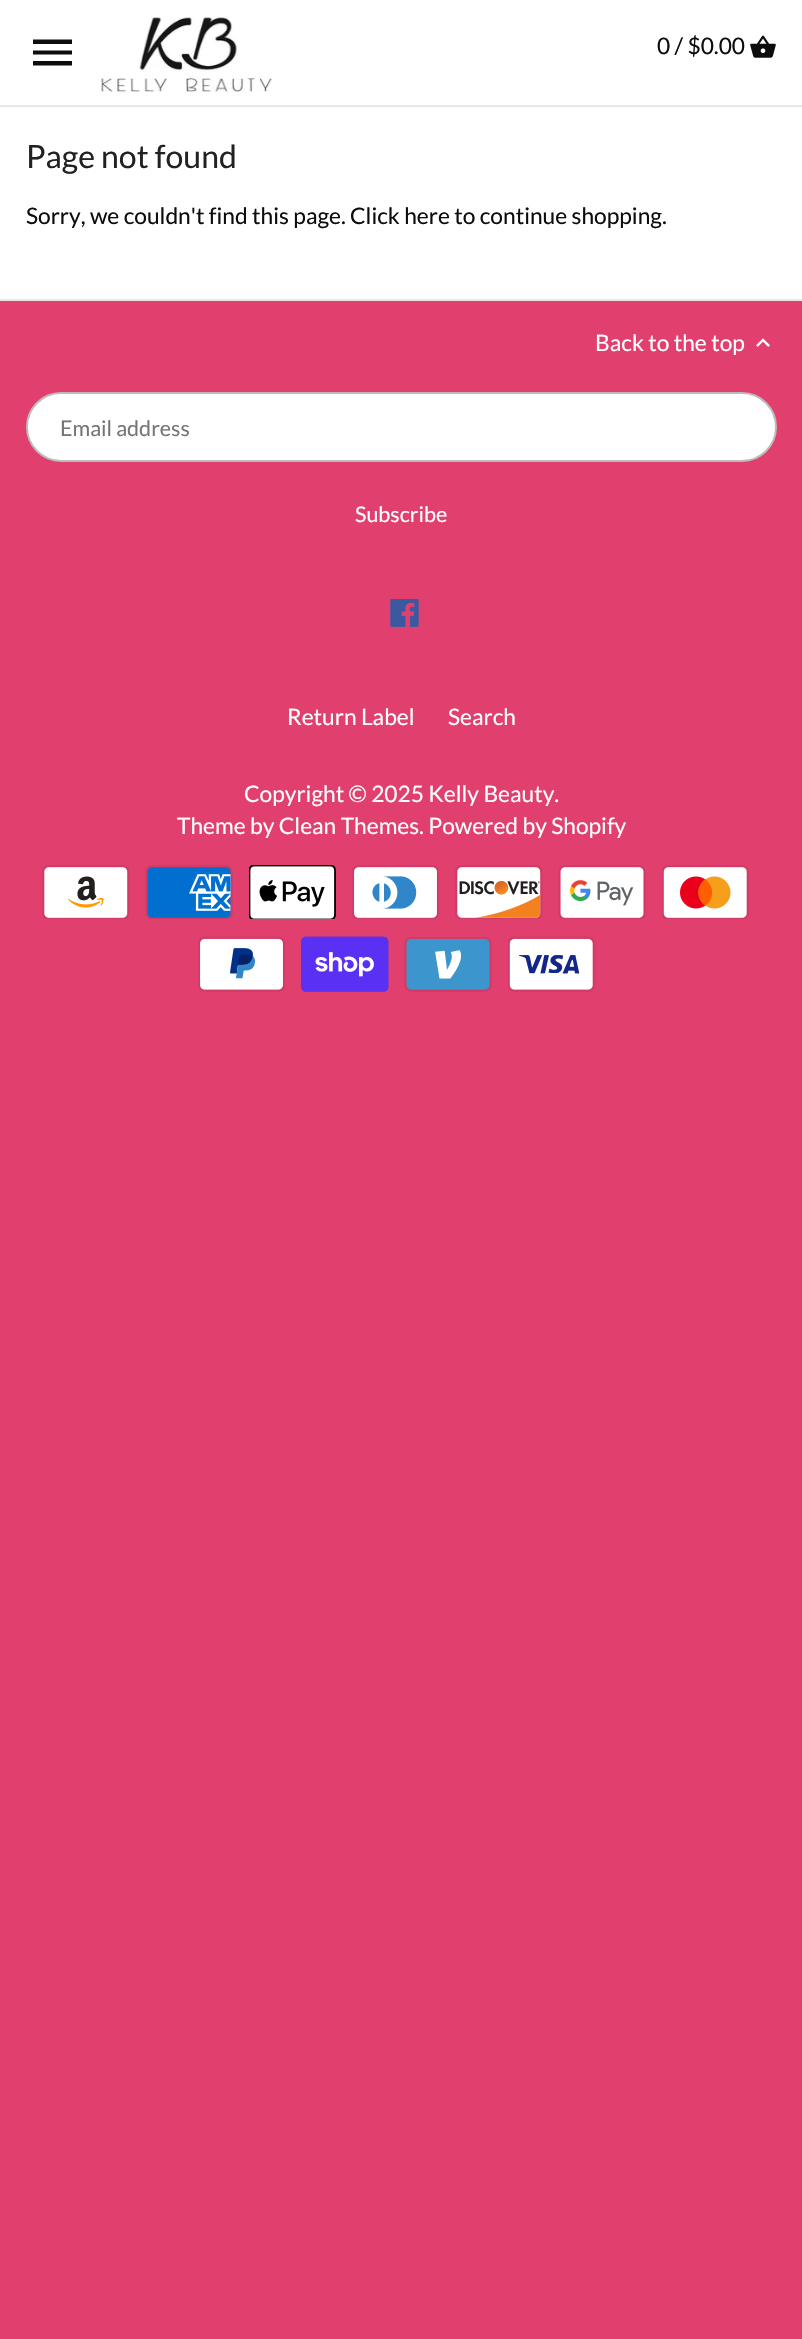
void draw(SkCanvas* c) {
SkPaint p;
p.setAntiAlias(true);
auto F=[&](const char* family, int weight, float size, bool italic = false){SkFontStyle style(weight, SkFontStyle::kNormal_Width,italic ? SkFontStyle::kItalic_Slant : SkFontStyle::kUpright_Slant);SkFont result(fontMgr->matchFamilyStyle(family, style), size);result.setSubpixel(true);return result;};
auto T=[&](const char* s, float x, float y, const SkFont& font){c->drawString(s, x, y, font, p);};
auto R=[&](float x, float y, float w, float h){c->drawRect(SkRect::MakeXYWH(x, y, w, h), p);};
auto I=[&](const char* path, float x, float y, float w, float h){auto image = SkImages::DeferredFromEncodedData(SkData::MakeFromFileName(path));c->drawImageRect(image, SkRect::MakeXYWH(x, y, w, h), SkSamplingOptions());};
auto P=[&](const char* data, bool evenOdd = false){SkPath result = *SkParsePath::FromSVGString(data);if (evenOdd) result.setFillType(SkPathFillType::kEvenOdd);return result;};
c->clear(0xffe13f6e);
p.setColor(0xffffffff);
R(0,0,802,299);
p.setColor(0xffebe6df);
R(0,105,802,2);
p.setColor(0xff0d0d0d);
c->drawPath(P("M33 65.5h39v-4.5h-39zm0-11h39v-4h-39zm0-15v4.5h39v-4.5z"),p);
I("1.png",101,17,171,76);
auto f1 = F("Lato",400,22.75);
T("0 / $0.00",657,54,f1);
I("2.png",750,35,26,23);
auto f2 = F("Lato",400,32);
p.setColor(0xff222222);
T("Page not found",26,168,f2);
p.setColor(0xff0d0d0d);
T("Sorry, we couldn't find this page.",26,224,f1);
T("Click here to continue shopping.",350,224,f1);
p.setColor(0xffebe6df);
R(0,299,802,2);
p.setColor(0xffffffff);
T("Back to the top",595,351,f1);
I("3.png",756,338,14,9);
c->drawRoundRect(SkRect::MakeXYWH(27,393,749,68),34,34,p);
p.setStroke(true);
p.setStrokeWidth(2);
p.setColor(0xffbcbcbc);
c->drawRoundRect(SkRect::MakeXYWH(27,393,749,68),34,34,p);
auto f3 = F("Lato",400,21.5);
p.setStroke(false);
p.setColor(0xff757575);
T("Email address",60,436,f3);
p.setColor(0xffffffff);
T("Subscribe",355,522,f3);
I("4.png",390,599,29,28);
T("Return Label",287,725,f1);
T("Search",448,725,f1);
T("Copyright © 2025 Kelly Beauty.",244,802,f1);
T("Theme by Clean Themes. Powered by Shopify",177,834,f1);
I("5.png",42,865,88,54);
I("6.png",145,865,88,54);
I("7.png",249,865,87,54);
I("8.png",352,865,87,54);
I("9.png",455,865,88,54);
I("10.png",558,865,88,54);
I("11.png",662,865,87,54);
I("12.png",198,936,87,56);
I("13.png",301,936,88,56);
I("14.png",404,937,88,55);
I("15.png",508,936,87,56);
}
